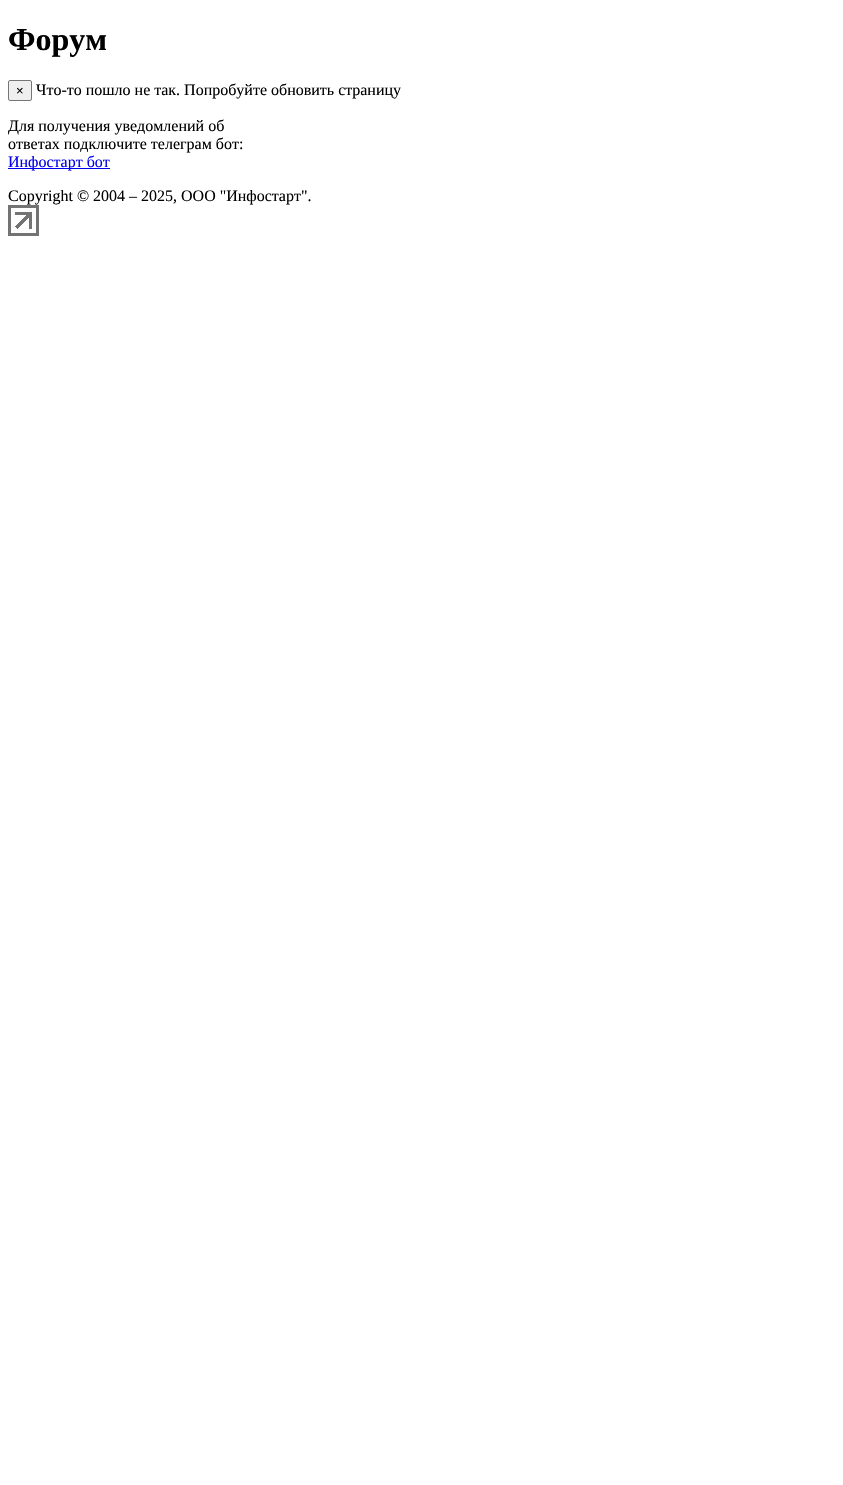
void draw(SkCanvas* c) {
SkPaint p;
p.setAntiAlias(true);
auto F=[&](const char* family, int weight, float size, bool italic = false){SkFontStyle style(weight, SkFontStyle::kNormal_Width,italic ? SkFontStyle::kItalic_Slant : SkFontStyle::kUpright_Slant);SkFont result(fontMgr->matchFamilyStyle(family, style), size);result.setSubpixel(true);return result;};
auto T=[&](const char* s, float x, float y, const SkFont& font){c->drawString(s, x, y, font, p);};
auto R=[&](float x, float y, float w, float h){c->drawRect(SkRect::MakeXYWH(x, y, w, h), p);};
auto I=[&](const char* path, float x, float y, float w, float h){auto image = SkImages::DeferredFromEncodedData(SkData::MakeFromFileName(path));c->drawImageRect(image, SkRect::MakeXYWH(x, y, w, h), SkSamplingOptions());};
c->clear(0xffffffff);
auto f1 = F("Liberation Serif",700,32);
p.setColor(0xff000000);
T("Форум",8,50,f1);
p.setColor(0xffefefef);
c->drawRoundRect(SkRect::MakeXYWH(8.5,80.5,23,20),1.5,1.5,p);
p.setStroke(true);
p.setStrokeWidth(1);
p.setColor(0xff767676);
c->drawRoundRect(SkRect::MakeXYWH(8.5,80.5,23,20),1.5,1.5,p);
auto f2 = F("Liberation Sans",400,13);
p.setStroke(false);
p.setColor(0xff000000);
T("×",16,95,f2);
auto f3 = F("Liberation Serif",400,16);
T("Что-то пошло не так. Попробуйте обновить страницу",36,95,f3);
T("Для получения уведомлений об",8,131,f3);
T("ответах подключите телеграм бот:",8,149,f3);
p.setColor(0xff0000ee);
R(8,168,102,1);
T("Инфостарт бот",8,167,f3);
p.setColor(0xff000000);
T("Copyright © 2004 – 2025, ООО \"Инфостарт\".",8,201,f3);
I("1.png",8,205,31,31);
}
